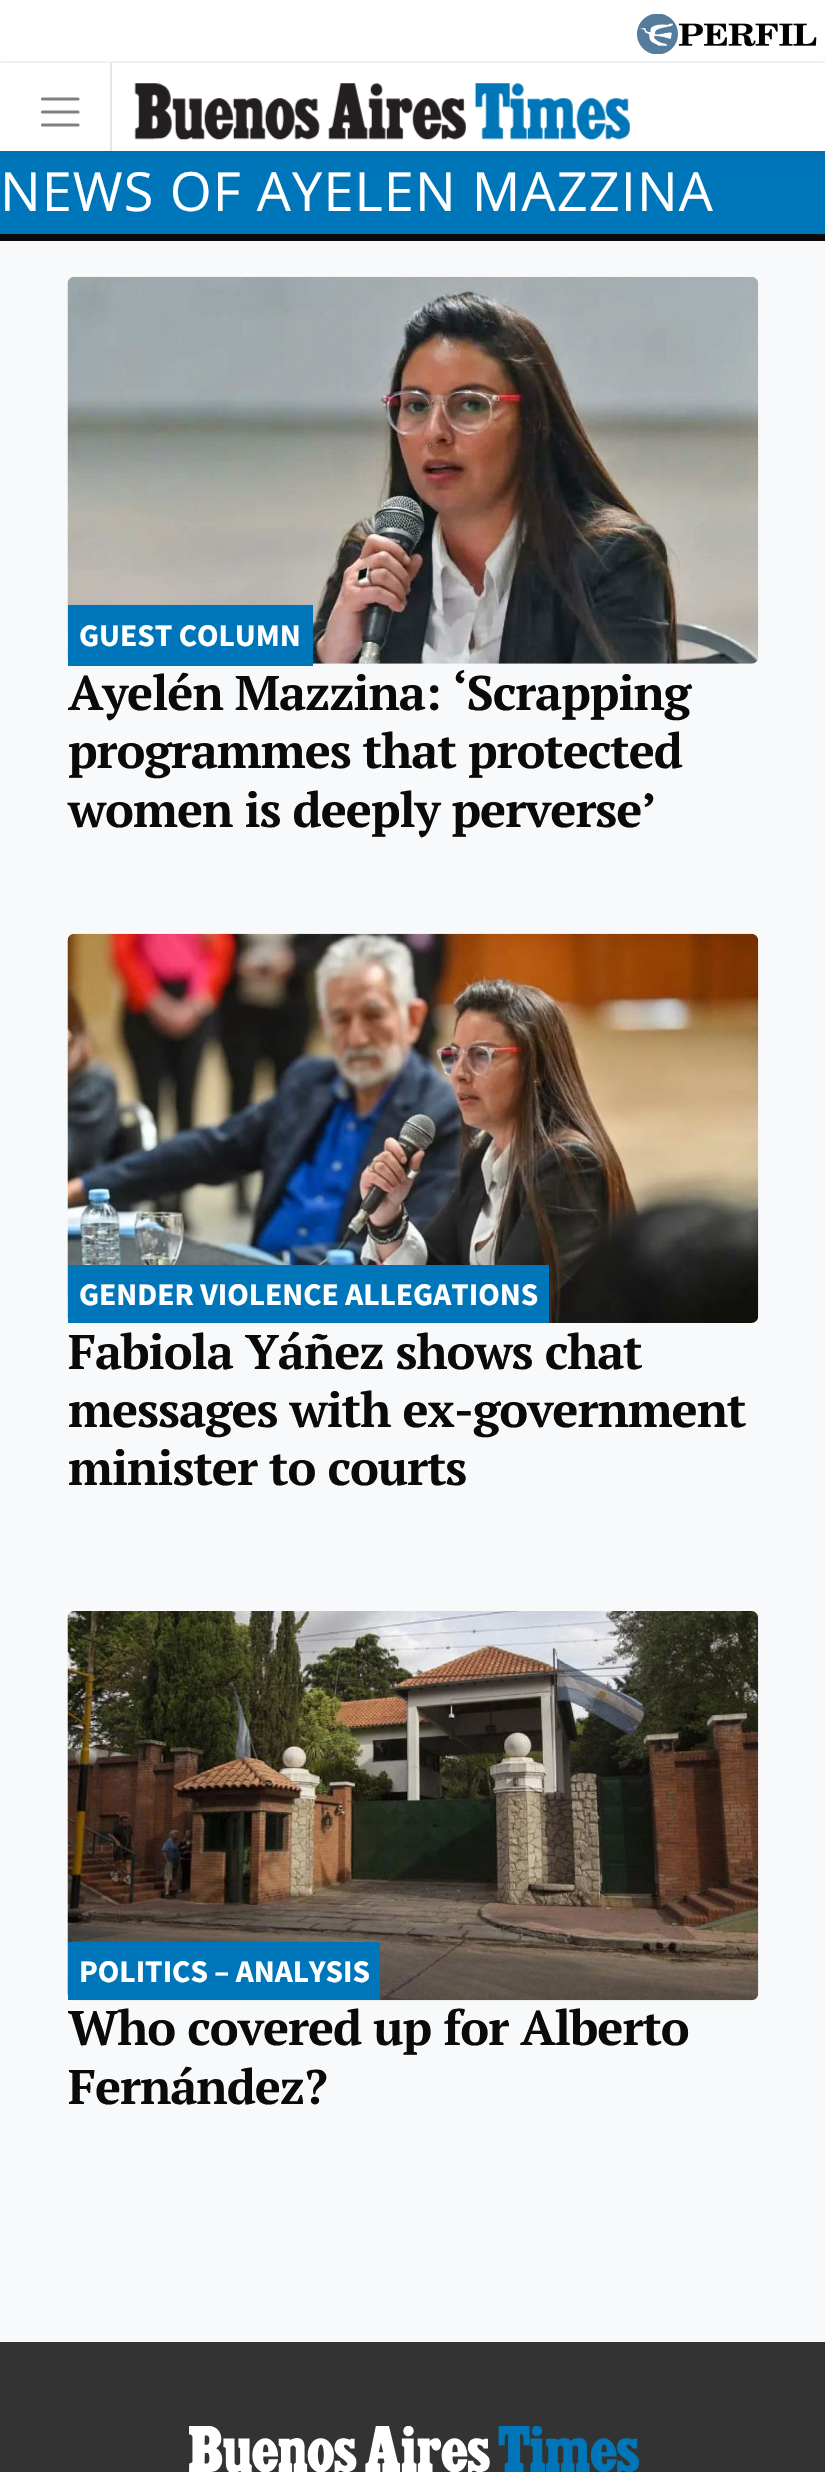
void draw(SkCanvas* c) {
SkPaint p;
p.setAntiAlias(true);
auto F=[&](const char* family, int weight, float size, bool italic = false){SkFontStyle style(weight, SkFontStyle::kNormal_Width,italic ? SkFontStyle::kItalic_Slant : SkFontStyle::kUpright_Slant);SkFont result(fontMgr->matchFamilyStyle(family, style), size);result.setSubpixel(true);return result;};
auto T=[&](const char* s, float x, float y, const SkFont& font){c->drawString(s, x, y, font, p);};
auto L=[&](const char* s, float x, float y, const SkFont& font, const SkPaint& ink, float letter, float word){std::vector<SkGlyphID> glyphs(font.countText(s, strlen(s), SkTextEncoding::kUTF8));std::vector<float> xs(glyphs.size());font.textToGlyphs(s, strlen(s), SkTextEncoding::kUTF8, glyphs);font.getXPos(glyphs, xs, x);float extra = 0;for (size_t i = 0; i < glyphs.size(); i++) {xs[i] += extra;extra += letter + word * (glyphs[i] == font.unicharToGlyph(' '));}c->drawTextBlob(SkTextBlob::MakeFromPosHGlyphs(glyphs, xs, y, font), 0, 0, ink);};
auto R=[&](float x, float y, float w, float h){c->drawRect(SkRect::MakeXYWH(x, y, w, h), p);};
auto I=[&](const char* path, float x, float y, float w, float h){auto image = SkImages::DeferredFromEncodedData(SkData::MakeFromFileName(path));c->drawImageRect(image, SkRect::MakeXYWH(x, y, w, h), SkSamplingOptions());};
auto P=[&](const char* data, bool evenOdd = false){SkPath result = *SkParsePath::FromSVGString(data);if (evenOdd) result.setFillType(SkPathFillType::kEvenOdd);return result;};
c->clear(0xfff8f9fa);
p.setColor(0xffffffff);
R(0,0,825,61);
p.setColor(0xfff1f3f5);
R(0,61,825,2);
I("1.png",637,14,180,40);
p.setColor(0xff0076ba);
R(0,151,825,83);
p.setColor(0x12000000);
p.setMaskFilter(SkMaskFilter::MakeBlur(kNormal_SkBlurStyle, 4.5));
c->drawRect(SkRect::MakeXYWH(0,68,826,87),p);
p.setMaskFilter(nullptr);
p.setColor(0xffffffff);
R(0,63,825,88);
p.setStroke(true);
p.setStrokeWidth(3.2);
p.setStrokeCap(SkPaint::kRound_Cap);
p.setColor(0xff808080);
c->drawPath(P("M42.5 99h35.5m-35.5 13h35.5m-35.5 13h35.5"),p);
p.setStroke(false);
p.setColor(0xffe6e6e6);
R(110,63,2,88);
I("2.png",134,83,496,57);
p.setColor(0xff0a0a0a);
R(0,234,825,7);
auto f1 = F("Open Sans",400,54);
p.setColor(0xffffffff);
L("NEWS OF AYELEN MAZZINA",0,211,f1,p,1.1,0);
I("3.png",67,276,692,388);
p.setColor(0xff0076ba);
R(68,605,245,61);
auto f2 = F("Source Sans Pro",700,31.5);
p.setColor(0xffffffff);
T("GUEST COLUMN",79,646,f2);
auto f3 = F("PT Serif",700,48.6);
p.setColor(0xff0a0a0a);
L("Ayelén Mazzina: ‘Scrapping",68,710,f3,p,-1,0);
L("programmes that protected",68,768,f3,p,-1,0);
L("women is deeply perverse’",68,827,f3,p,-1,0);
I("4.png",67,933,692,390);
p.setColor(0xff0076ba);
R(68,1265,481,58);
p.setColor(0xffffffff);
T("GENDER VIOLENCE ALLEGATIONS",79,1305,f2);
p.setColor(0xff0a0a0a);
L("Fabiola Yáñez shows chat",68,1369,f3,p,-1,0);
L("messages with ex-government",68,1427,f3,p,-1,0);
L("minister to courts",68,1485,f3,p,-1,0);
I("5.png",67,1611,692,390);
p.setColor(0xff0076ba);
R(68,1942,312,58);
p.setColor(0xffffffff);
T("POLITICS – ANALYSIS",79,1982,f2);
p.setColor(0xff0a0a0a);
L("Who covered up for Alberto",68,2045,f3,p,-1,0);
L("Fernández?",68,2104,f3,p,-1,0);
p.setColor(0xff333333);
R(0,2342,825,130);
I("6.png",189,2426,450,46);
}
